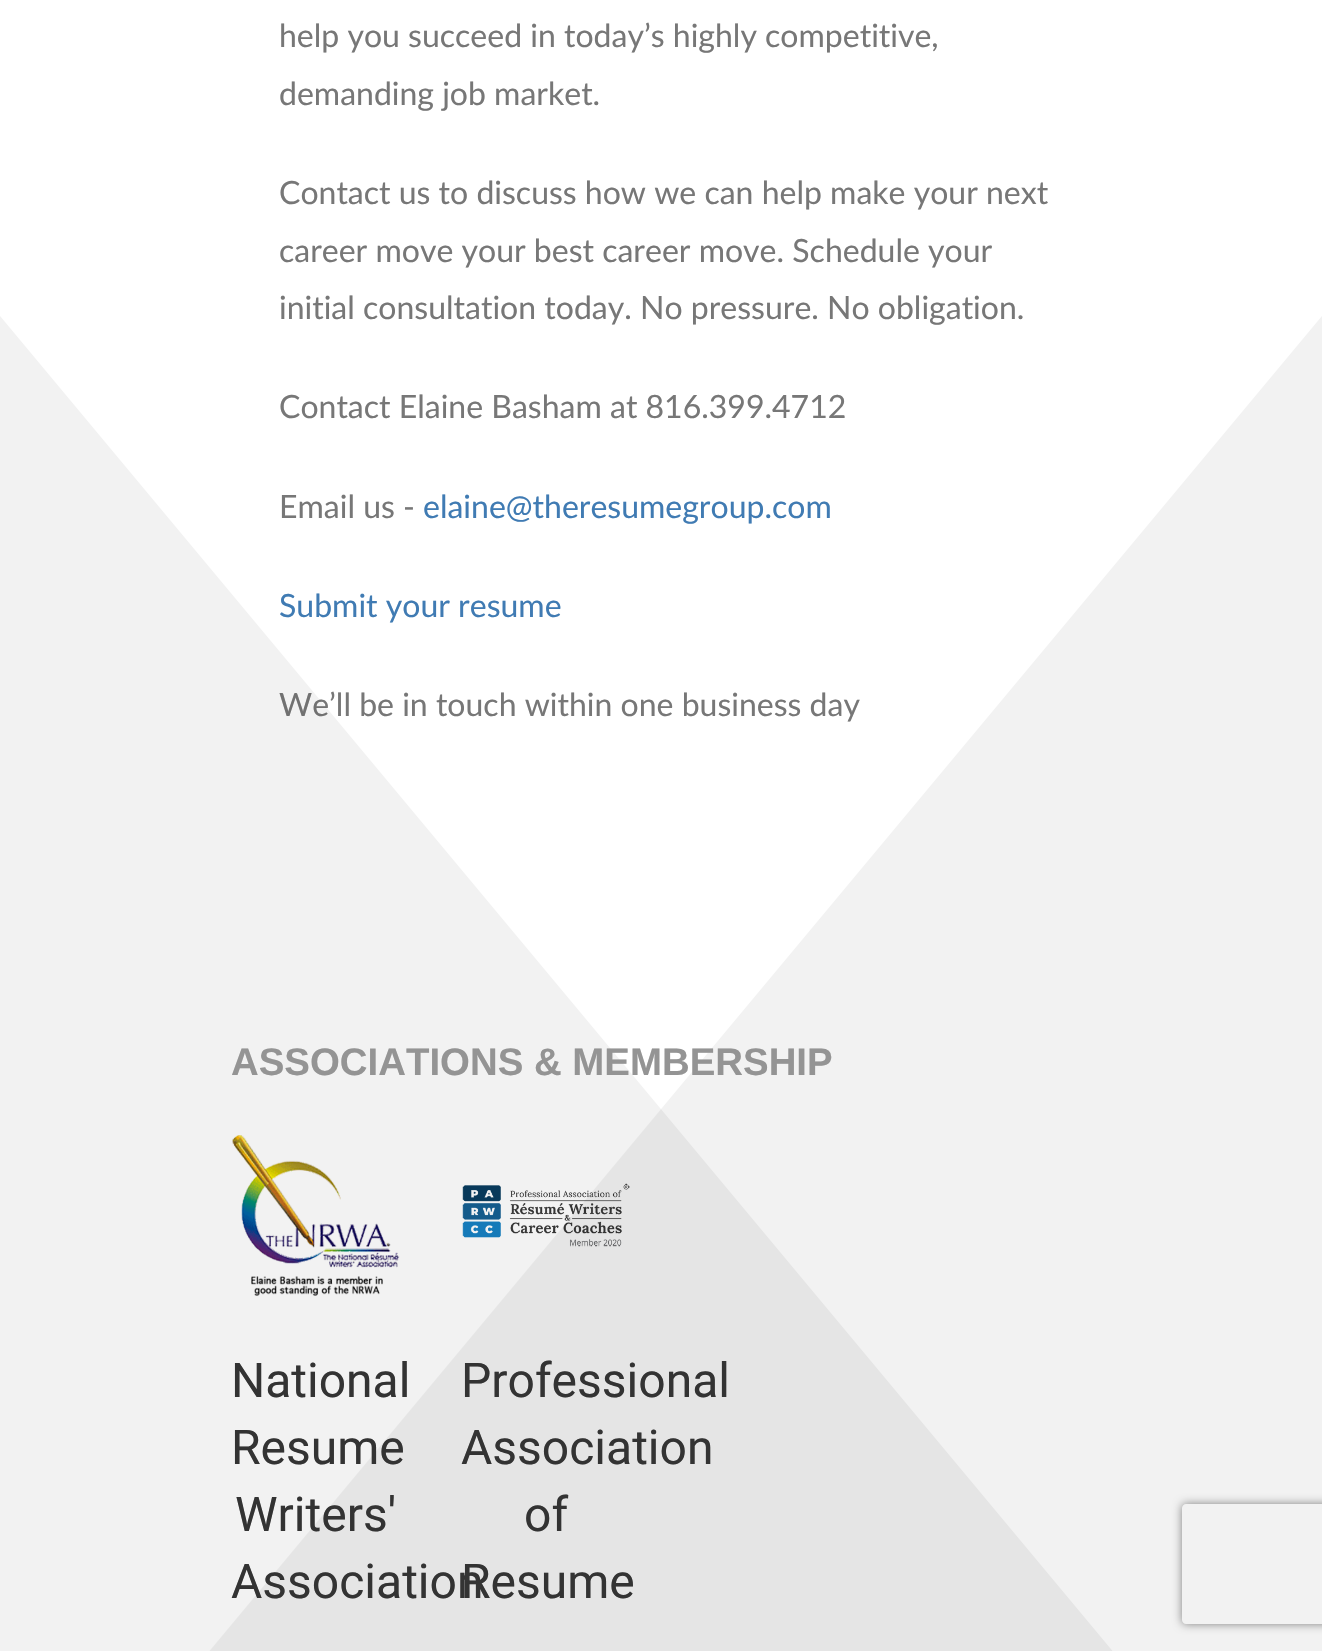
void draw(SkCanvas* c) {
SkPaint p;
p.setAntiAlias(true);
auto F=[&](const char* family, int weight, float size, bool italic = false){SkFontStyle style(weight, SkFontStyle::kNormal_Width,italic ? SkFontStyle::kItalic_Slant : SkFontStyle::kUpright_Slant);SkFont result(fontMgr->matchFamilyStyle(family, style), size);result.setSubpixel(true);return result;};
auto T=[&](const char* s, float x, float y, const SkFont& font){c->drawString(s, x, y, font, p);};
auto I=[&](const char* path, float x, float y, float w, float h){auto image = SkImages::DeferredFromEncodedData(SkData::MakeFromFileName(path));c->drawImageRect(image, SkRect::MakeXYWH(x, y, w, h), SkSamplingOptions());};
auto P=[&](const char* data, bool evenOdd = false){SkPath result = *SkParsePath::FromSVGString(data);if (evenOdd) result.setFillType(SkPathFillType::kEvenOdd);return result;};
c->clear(0xffffffff);
auto f1 = F("Lato",400,32);
p.setColor(0xff777777);
T("help you succeed in today’s highly competitive,",279,47,f1);
T("demanding job market.",279,105,f1);
T("Contact us to discuss how we can help make your next",279,204,f1);
T("career move your best career move. Schedule your",279,262,f1);
T("initial consultation today. No pressure. No obligation.",279,319,f1);
T("Contact Elaine Basham at 816.399.4712",279,418,f1);
T("Email us -",279,518,f1);
p.setColor(0xff407bb3);
T("elaine@theresumegroup.com",423,518,f1);
T("Submit your resume",279,617,f1);
p.setColor(0xff777777);
T("We’ll be in touch within one business day",279,716,f1);
I("1.png",232,1135,168,161);
I("2.png",462,1183,168,64);
p.setColor(0x0d000000);
c->drawPath(P("M0 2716v-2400l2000 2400z"),p);
c->drawPath(P("M1322 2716h-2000l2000-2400z"),p);
auto f2 = F("Liberation Sans",700,38.4);
p.setColor(0xff949494);
T("ASSOCIATIONS & MEMBERSHIP",231,1075,f2);
auto f3 = F("Roboto",400,48);
p.setColor(0xff333333);
T("National",231,1397,f3);
T("Resume",231,1464,f3);
T("Writers'",235,1531,f3);
T("Association",231,1598,f3);
T("Professional",461,1397,f3);
T("Association",461,1464,f3);
T("of",524,1531,f3);
T("Resume",461,1598,f3);
c->save();
c->clipPath(P("M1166 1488h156v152h-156zm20 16h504c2 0 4 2 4 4v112c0 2-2 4-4 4h-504c-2 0-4-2-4-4v-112c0-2 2-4 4-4z",true),true);
p.setColor(0xff808080);
p.setMaskFilter(SkMaskFilter::MakeBlur(kNormal_SkBlurStyle, 5));
c->drawRoundRect(SkRect::MakeXYWH(1182,1504,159,120),4,4,p);
p.setMaskFilter(nullptr);
c->restore();
}
